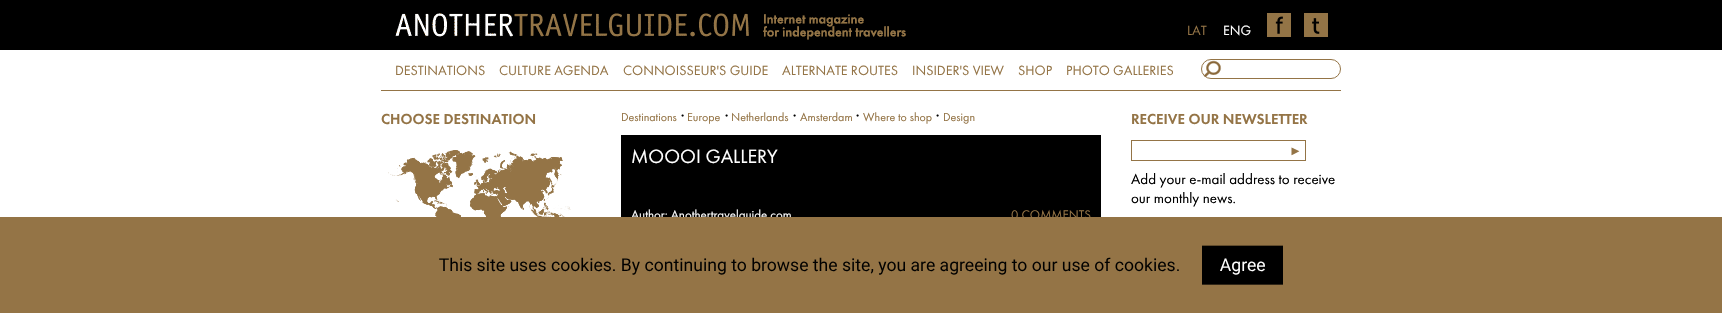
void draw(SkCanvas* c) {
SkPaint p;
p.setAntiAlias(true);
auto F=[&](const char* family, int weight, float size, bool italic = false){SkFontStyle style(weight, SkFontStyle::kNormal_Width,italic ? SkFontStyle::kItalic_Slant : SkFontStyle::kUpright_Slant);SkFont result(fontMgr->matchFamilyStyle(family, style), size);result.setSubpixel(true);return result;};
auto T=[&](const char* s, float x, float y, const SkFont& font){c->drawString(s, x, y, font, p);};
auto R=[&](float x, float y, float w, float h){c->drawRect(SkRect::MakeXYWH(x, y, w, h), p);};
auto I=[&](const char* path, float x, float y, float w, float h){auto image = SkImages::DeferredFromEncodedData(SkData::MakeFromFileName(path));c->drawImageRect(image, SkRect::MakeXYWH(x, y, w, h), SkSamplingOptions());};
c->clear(0xffffffff);
p.setColor(0xff000000);
R(0,0,1722,50);
I("1.png",395,13,511,27);
auto f1 = F("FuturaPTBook",400,14);
p.setColor(0xff947446);
T("LAT",1187,35,f1);
p.setColor(0xffffffff);
T("ENG",1223,35,f1);
I("2.png",1267,13,24,24);
I("3.png",1304,13,24,24);
p.setColor(0xff947446);
R(381,90,960,1);
T("DESTINATIONS",395,75,f1);
T("CULTURE AGENDA",499,75,f1);
T("CONNOISSEUR'S GUIDE",623,75,f1);
T("ALTERNATE ROUTES",782,75,f1);
T("INSIDER'S VIEW",912,75,f1);
T("SHOP",1018,75,f1);
T("PHOTO GALLERIES",1066,75,f1);
I("4.png",1203,60,19,18);
p.setStroke(true);
p.setStrokeWidth(1);
c->drawRoundRect(SkRect::MakeXYWH(1201.5,59.5,139,19),9.5,9.5,p);
auto f2 = F("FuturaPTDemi",400,15);
p.setStroke(false);
T("CHOOSE DESTINATION",381,124,f2);
I("5.png",388,150,183,67);
auto f3 = F("FuturaPTBook",400,12);
T("Destinations",621,121,f3);
auto f4 = F("FuturaPTBook",400,16);
p.setColor(0xff000000);
T("·",681,121,f4);
p.setColor(0xff947446);
T("Europe",687,121,f3);
p.setColor(0xff000000);
T("·",725,121,f4);
p.setColor(0xff947446);
T("Netherlands",731,121,f3);
p.setColor(0xff000000);
T("·",793,121,f4);
p.setColor(0xff947446);
T("Amsterdam",800,121,f3);
p.setColor(0xff000000);
T("·",856,121,f4);
p.setColor(0xff947446);
T("Where to shop",863,121,f3);
p.setColor(0xff000000);
T("·",936,121,f4);
p.setColor(0xff947446);
T("Design",943,121,f3);
T("RECEIVE OUR NEWSLETTER",1131,124,f2);
R(1131,140,175,1);
R(1131,160,155,1);
R(1131,140,1,21);
R(1305,140,1,21);
R(1286,160,20,1);
auto f5 = F("Liberation Sans",400,13);
T("►",1289,155,f5);
auto f6 = F("FuturaPTBook",400,15);
p.setColor(0xff000000);
T("Add your e-mail address to receive",1131,184,f6);
T("our monthly news.",1131,203,f6);
R(621,135,480,82);
auto f7 = F("FuturaPTBook",400,20);
p.setColor(0xffffffff);
T("MOOOI GALLERY",631,163,f7);
auto f8 = F("FuturaPTBook",400,13);
T("Author: Anothertravelguide.com",631,219,f8);
p.setColor(0xff947446);
T("0 COMMENTS",1011,219,f8);
R(0,217,1722,96);
I("6.png",439,245,844,40);
}
